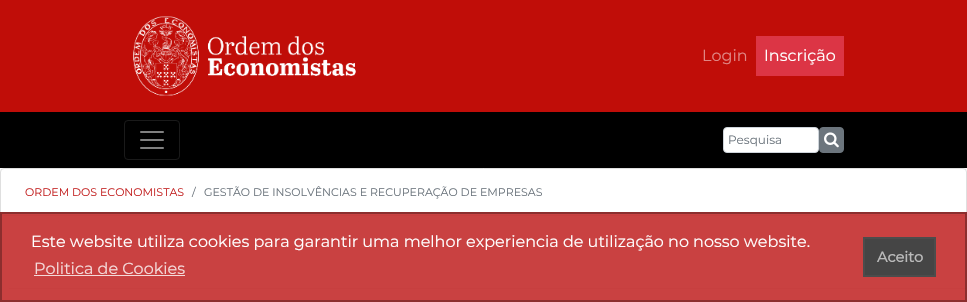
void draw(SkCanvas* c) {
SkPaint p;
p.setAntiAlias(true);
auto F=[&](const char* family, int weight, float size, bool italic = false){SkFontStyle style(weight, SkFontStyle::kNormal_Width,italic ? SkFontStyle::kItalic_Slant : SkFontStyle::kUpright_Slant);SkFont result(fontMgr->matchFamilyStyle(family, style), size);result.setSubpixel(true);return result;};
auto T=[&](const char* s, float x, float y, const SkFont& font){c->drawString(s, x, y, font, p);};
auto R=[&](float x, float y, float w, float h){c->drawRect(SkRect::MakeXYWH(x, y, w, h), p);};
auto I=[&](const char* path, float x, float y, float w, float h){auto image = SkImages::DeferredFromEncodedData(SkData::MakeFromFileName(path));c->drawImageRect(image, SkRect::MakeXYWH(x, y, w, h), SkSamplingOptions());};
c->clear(0xffffffff);
I("1.png",0,168,967,134);
p.setColor(0xffc00d08);
R(0,0,967,112);
I("2.png",133,16,223,80);
auto f1 = F("Montserrat",100,16);
p.setColor(0xffe08684);
T("Login",702,61,f1);
p.setColor(0xffdc3545);
R(756,36,88,40);
p.setColor(0xffffffff);
T("Inscrição",764,61,f1);
p.setColor(0xbfffffff);
R(0,168,967,134);
p.setColor(0xff000000);
R(0,112,967,56);
p.setStroke(true);
p.setStrokeWidth(1);
p.setColor(0xff1a1a1a);
c->drawRoundRect(SkRect::MakeXYWH(124.5,120.5,55,39),3.5,3.5,p);
I("3.png",140,131,24,18);
p.setStroke(false);
p.setColor(0xffffffff);
c->drawRoundRect(SkRect::MakeXYWH(723.5,127.5,95,25),3.5,3.5,p);
p.setStroke(true);
p.setColor(0xffced4da);
c->drawRoundRect(SkRect::MakeXYWH(723.5,127.5,95,25),3.5,3.5,p);
auto f2 = F("Montserrat",100,12);
p.setStroke(false);
p.setColor(0xff6c757d);
T("Pesquisa",728,144,f2);
c->drawRoundRect(SkRect::MakeXYWH(819.5,127.5,24,25),3.5,3.5,p);
p.setStroke(true);
c->drawRoundRect(SkRect::MakeXYWH(819.5,127.5,24,25),3.5,3.5,p);
I("4.png",824,132,15,16);
p.setStroke(false);
p.setColor(0xffffffff);
c->drawRoundRect(SkRect::MakeXYWH(.5,168.5,966,47),3.5,3.5,p);
p.setStroke(true);
p.setColor(0xffdfdfdf);
c->drawRoundRect(SkRect::MakeXYWH(.5,168.5,966,47),3.5,3.5,p);
auto f3 = F("Montserrat",100,11);
p.setStroke(false);
p.setColor(0xffc32222);
T("ORDEM DOS ECONOMISTAS",25,196,f3);
p.setColor(0xff6c757d);
T("/",192,196,f3);
T("GESTÃO DE INSOLVÊNCIAS E RECUPERAÇÃO DE EMPRESAS",204,196,f3);
p.setColor(0xffe5e5e5);
R(9,288,957,1);
p.setColor(0xe6c32c2c);
R(0,212,967,90);
p.setStroke(true);
p.setStrokeWidth(2);
p.setColor(0x4d000000);
c->drawRect(SkRect::MakeXYWH(1,213,965,88),p);
p.setStroke(false);
p.setColor(0xffffffff);
T("Este website utiliza cookies para garantir uma melhor experiencia de utilização no nosso website.",31,247,f1);
p.setColor(0xfff4d9d9);
T("Politica de Cookies",34,274,f1);
R(34,275,151,1);
p.setColor(0xff454545);
c->drawRect(SkRect::MakeXYWH(864,238,71,38),p);
p.setStroke(true);
p.setColor(0xff4c4c4c);
c->drawRect(SkRect::MakeXYWH(864,238,71,38),p);
auto f4 = F("Montserrat",700,14.5);
p.setStroke(false);
p.setColor(0xffbababa);
T("Aceito",877,262,f4);
}
